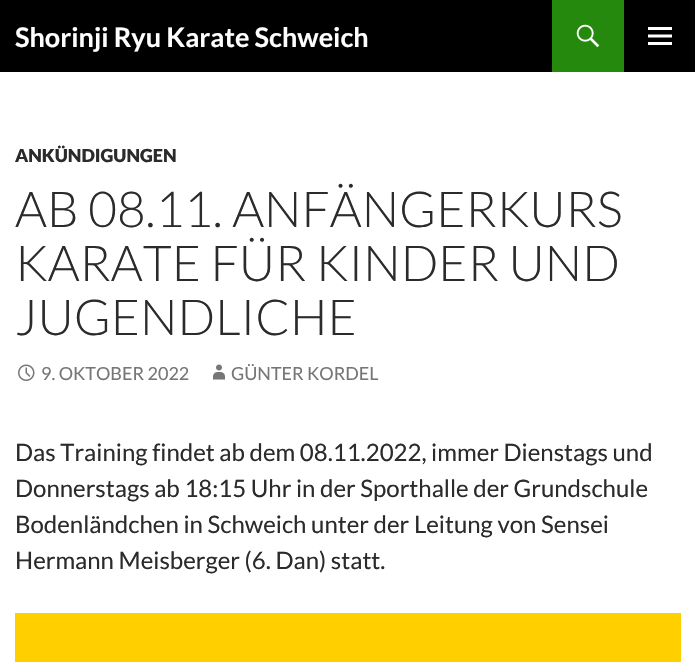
void draw(SkCanvas* c) {
SkPaint p;
p.setAntiAlias(true);
auto F=[&](const char* family, int weight, float size, bool italic = false){SkFontStyle style(weight, SkFontStyle::kNormal_Width,italic ? SkFontStyle::kItalic_Slant : SkFontStyle::kUpright_Slant);SkFont result(fontMgr->matchFamilyStyle(family, style), size);result.setSubpixel(true);return result;};
auto T=[&](const char* s, float x, float y, const SkFont& font){c->drawString(s, x, y, font, p);};
auto R=[&](float x, float y, float w, float h){c->drawRect(SkRect::MakeXYWH(x, y, w, h), p);};
auto I=[&](const char* path, float x, float y, float w, float h){auto image = SkImages::DeferredFromEncodedData(SkData::MakeFromFileName(path));c->drawImageRect(image, SkRect::MakeXYWH(x, y, w, h), SkSamplingOptions());};
c->clear(0xffffffff);
p.setColor(0xff000000);
R(0,0,695,72);
auto f1 = F("Lato",700,27);
p.setColor(0xffffffff);
T("Shorinji Ryu Karate Schweich",15,47,f1);
p.setColor(0xff24890d);
R(552,0,72,72);
I("1.png",576,24,24,24);
I("2.png",648,27,24,18);
auto f2 = F("Lato",900,18);
p.setColor(0xff2b2b2b);
T("ANKÜNDIGUNGEN",15,162,f2);
auto f3 = F("Lato",300,49.5);
T("AB 08.11. ANFÄNGERKURS",15,227,f3);
T("KARATE FÜR KINDER UND",15,281,f3);
T("JUGENDLICHE",15,335,f3);
I("3.png",18,364,17,17);
auto f4 = F("Lato",400,18);
p.setColor(0xff767676);
T("9. OKTOBER 2022",41,380,f4);
I("4.png",213,364,12,16);
T("GÜNTER KORDEL",231,380,f4);
auto f5 = F("Lato",400,24);
p.setColor(0xff2b2b2b);
T("Das Training findet ab dem 08.11.2022, immer Dienstags und",15,461,f5);
T("Donnerstags ab 18:15 Uhr in der Sporthalle der Grundschule",15,497,f5);
T("Bodenländchen in Schweich unter der Leitung von Sensei",15,533,f5);
T("Hermann Meisberger (6. Dan) statt.",15,569,f5);
p.setColor(0xffffcf00);
R(15,613,666,49);
}
